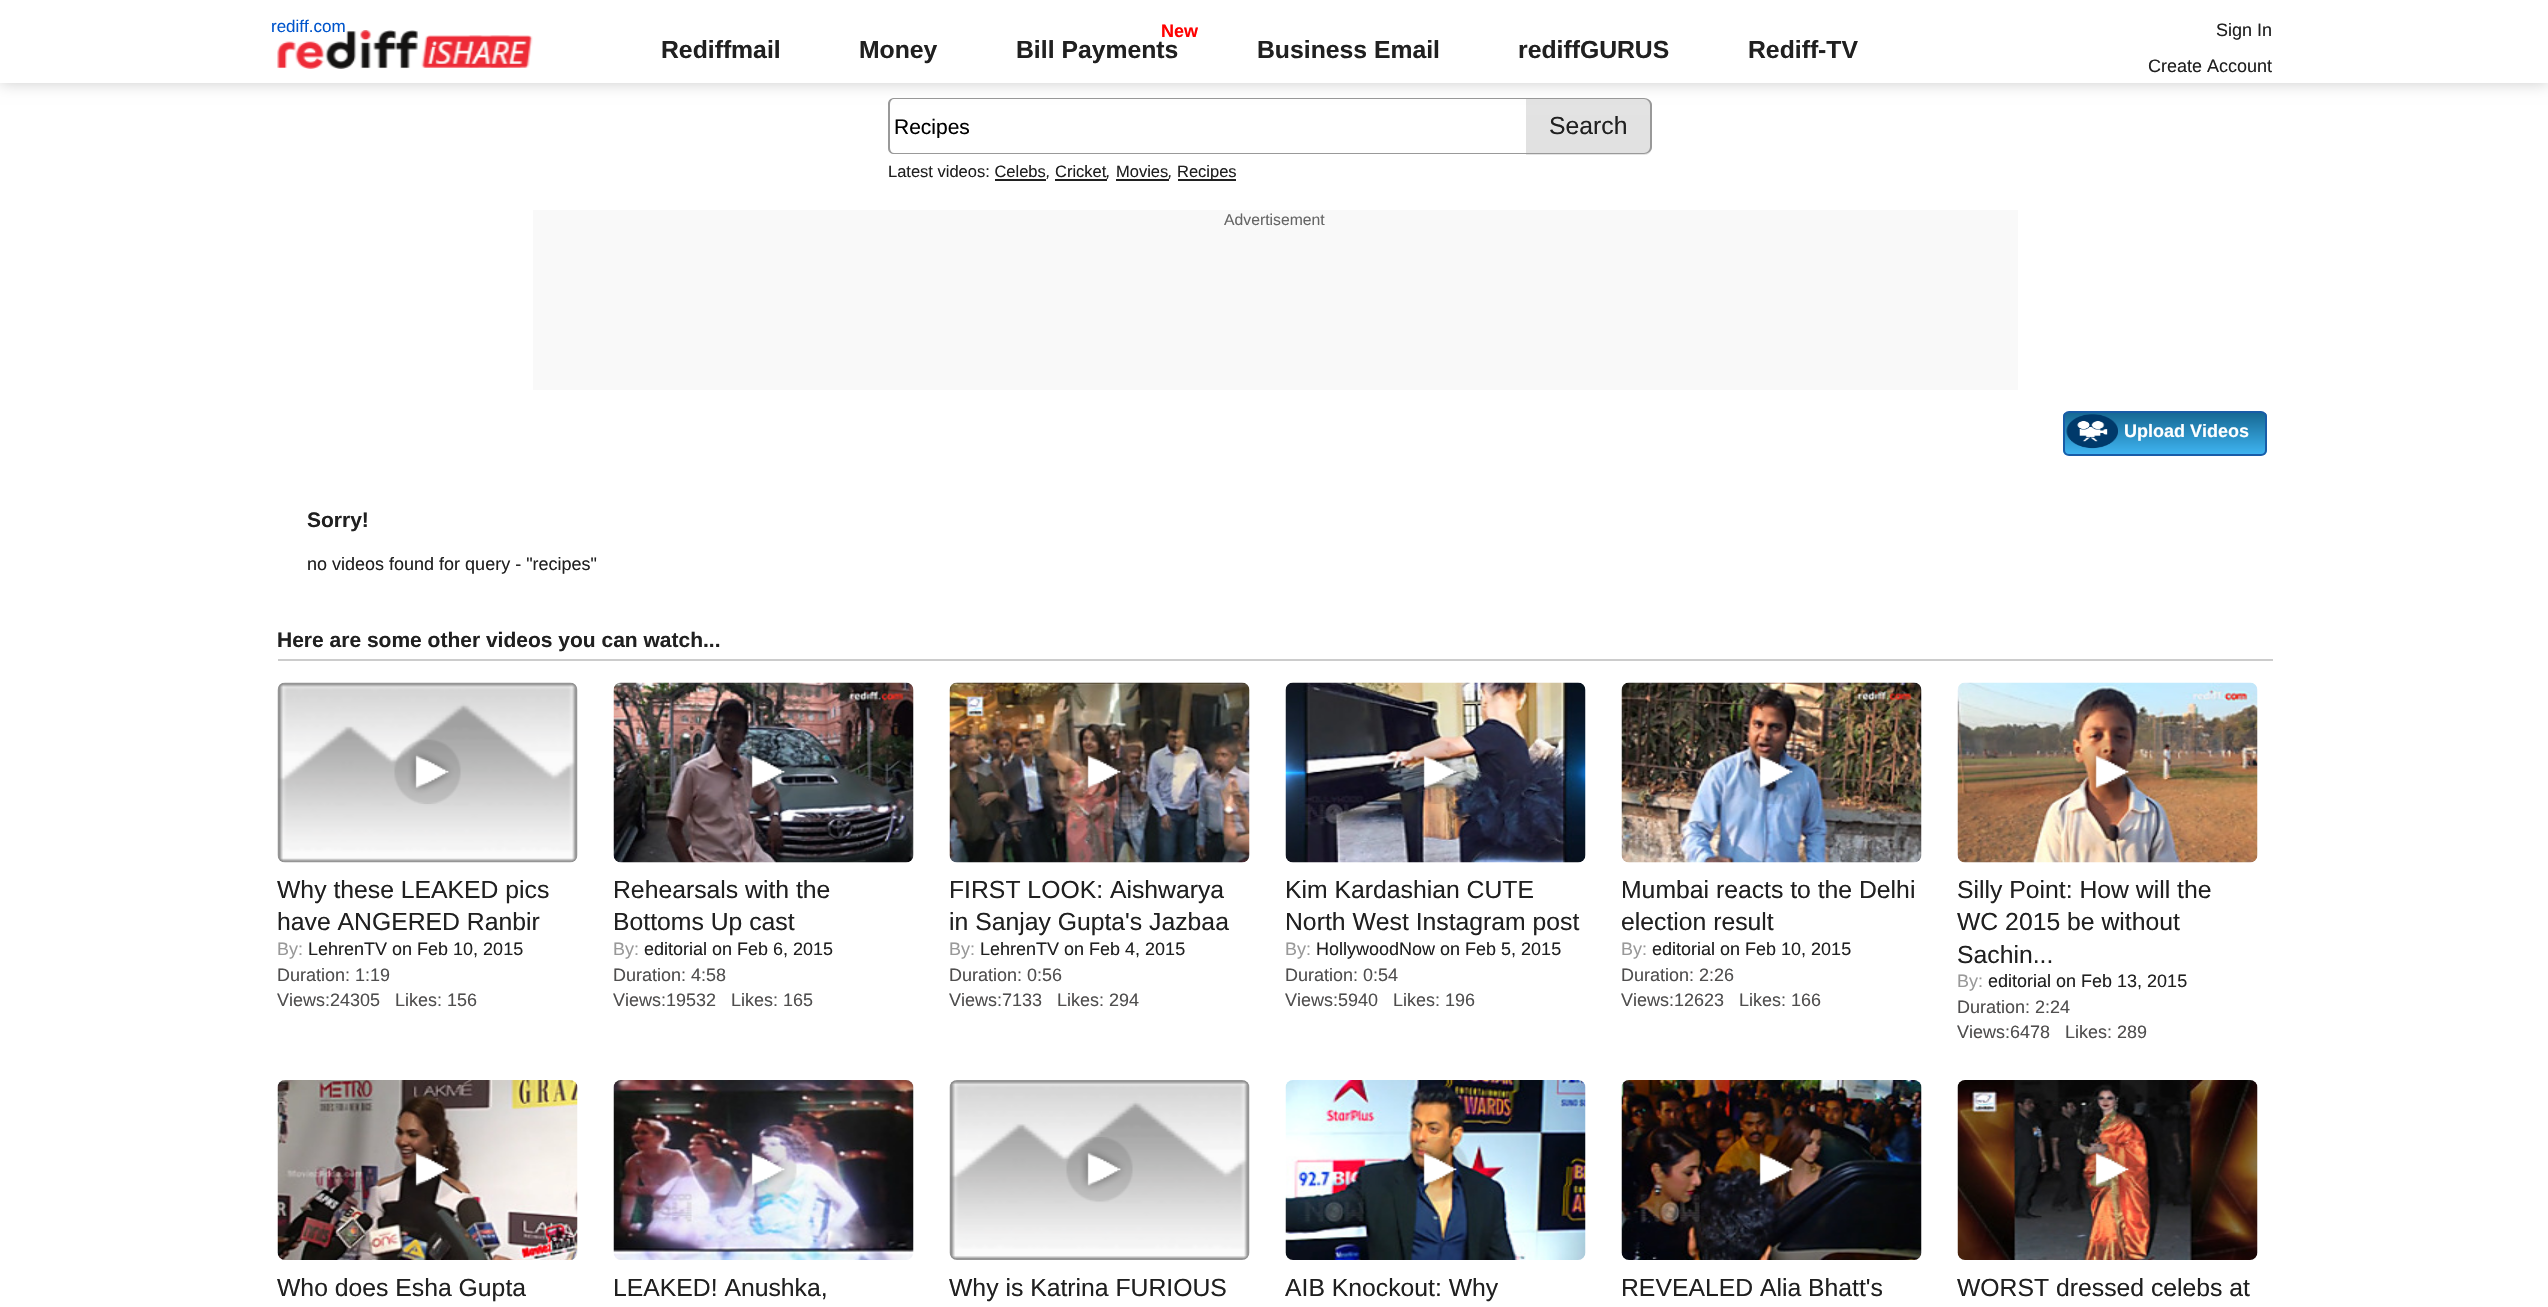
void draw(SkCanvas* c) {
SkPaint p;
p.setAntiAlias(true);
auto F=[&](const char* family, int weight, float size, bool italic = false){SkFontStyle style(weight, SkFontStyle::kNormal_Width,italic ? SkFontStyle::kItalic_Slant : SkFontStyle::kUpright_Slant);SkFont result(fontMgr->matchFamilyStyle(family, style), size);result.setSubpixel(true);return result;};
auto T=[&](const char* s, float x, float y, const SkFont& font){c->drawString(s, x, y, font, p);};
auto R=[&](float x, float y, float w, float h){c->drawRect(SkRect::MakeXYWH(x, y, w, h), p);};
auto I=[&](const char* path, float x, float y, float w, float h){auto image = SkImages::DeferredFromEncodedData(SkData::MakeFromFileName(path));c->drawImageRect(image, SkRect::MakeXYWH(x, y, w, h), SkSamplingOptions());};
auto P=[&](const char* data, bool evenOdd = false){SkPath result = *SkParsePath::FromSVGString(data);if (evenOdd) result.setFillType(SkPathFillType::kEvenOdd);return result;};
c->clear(0xffffffff);
p.setColor(0xff999999);
c->drawPath(P("M894 98h633v56h-633c-3 0-6-2-6-6v-44c0-4 3-6 6-6zm0 1h633v54h-633c-2 0-4-2-4-5v-44c0-3 2-5 4-5z",true),p);
c->save();
c->clipPath(P("M1526 98h118c4.5 0 8 3.5 8 8v41c0 4.5-3.5 8-8 8h-118z"),true);
{
const SkColor colors[] = {0xffe3e3e3,0xffe1e1e1};
const float stops[] = {.05,1};
const SkPoint ends[] = {{1588,99}, {1588,153}};
p.setShader(SkGradientShader::MakeLinear(ends, colors, stops, 2, SkTileMode::kClamp));
p.setAlpha(255);
}
R(1526,99,126,54);
{
const SkColor colors[] = {0xffe3e3e3,0xffe1e1e1};
const float stops[] = {.05,1};
const SkPoint ends[] = {{1588,153}, {1588,207}};
p.setShader(SkGradientShader::MakeLinear(ends, colors, stops, 2, SkTileMode::kClamp));
p.setAlpha(255);
}
R(1526,153,126,2);
c->restore();
p.setShader(nullptr);
p.setColor(0xff999999);
c->drawPath(P("M1526 98h118c4 0 8 3 8 7v42c0 4-4 7-8 7h-118zm0 1h118c3 0 6 3 6 6v42c0 3-3 6-6 6h-118z",true),p);
p.setColor(0x33000000);
p.setMaskFilter(SkMaskFilter::MakeBlur(kNormal_SkBlurStyle, 7.5));
c->drawRect(SkRect::MakeXYWH(0,0,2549,83),p);
p.setMaskFilter(nullptr);
p.setColor(0xffffffff);
R(0,0,2548,83);
I("1.png",277,30,256,39);
auto f1 = F("Liberation Sans",400,17);
p.setColor(0xff0055cc);
T("rediff.com",271,32,f1);
auto f2 = F("Liberation Sans",700,24.75);
p.setColor(0xff202020);
T("Rediffmail",661,58,f2);
T("Money",859,58,f2);
auto f3 = F("Liberation Sans",700,18);
p.setColor(0xffff0000);
T("New",1161,37,f3);
p.setColor(0xff202020);
T("Bill Payments",1016,58,f2);
T("Business Email",1257,58,f2);
T("rediffGURUS",1518,58,f2);
T("Rediff-TV",1748,58,f2);
auto f4 = F("Liberation Sans",400,18);
T("Sign In",2216,36,f4);
T("Create Account",2148,72,f4);
c->save();
c->clipRect(SkRect::MakeXYWH(894,114,633,24));
auto f5 = F("Liberation Sans",400,21);
p.setColor(0xff000000);
T("Recipes",894,134,f5);
c->restore();
auto f6 = F("Liberation Sans",400,24.75);
p.setColor(0xff202020);
T("Search",1549,134,f6);
auto f7 = F("Liberation Sans",400,16.5);
T("Latest videos: Celebs",888,177,f7);
auto f8 = F("Liberation Sans",400,16.5,true);
T(",",1046,177,f8);
T("Cricket",1055,177,f7);
R(1055,179,52,2);
T(",",1106,177,f8);
T("Movies",1116,177,f7);
R(1116,179,53,2);
T(",",1168,177,f8);
R(1178,179,58,2);
T("Recipes",1177,177,f7);
R(995,179,51,2);
p.setColor(0xfff9f9f9);
R(533,210,1485,180);
auto f9 = F("Liberation Sans",400,15.75);
p.setColor(0xff666666);
T("Advertisement",1224,225,f9);
c->save();
c->clipPath(P("M2069 411h192c3.5 0 6 2.5 6 6v33c0 3.5-2.5 6-6 6h-192c-3.5 0-6-2.5-6-6v-33c0-3.5 2.5-6 6-6z"),true);
{
const SkColor colors[] = {0xff176994,0xff3fb5f2};
const float stops[] = {0,1};
const SkPoint ends[] = {{2165,413}, {2165,455}};
p.setShader(SkGradientShader::MakeLinear(ends, colors, stops, 2, SkTileMode::kClamp));
p.setAlpha(255);
}
R(2063,413,204,42);
c->restore();
p.setStroke(true);
p.setStrokeWidth(2);
p.setShader(nullptr);
p.setColor(0xff185ca8);
c->drawRoundRect(SkRect::MakeXYWH(2064,412,202,43),5,5,p);
I("2.png",2066,414,52,35);
p.setStroke(false);
p.setColor(0xffffffff);
T("Upload Videos",2124,437,f3);
auto f10 = F("Liberation Sans",700,21);
p.setColor(0xff202020);
T("Sorry!",307,527,f10);
T("no videos found for query - \"recipes\"",307,570,f4);
T("Here are some other videos you can watch...",277,647,f10);
p.setColor(0xffcccccc);
R(278,659,1995,2);
I("3.png",277,682,301,181);
I("4.png",394,739,67,65);
p.setColor(0xff202020);
T("Why these LEAKED pics",277,898,f6);
T("have ANGERED Ranbir",277,930,f6);
p.setColor(0xff999999);
T("By:",277,955,f4);
p.setColor(0xff202020);
T("LehrenTV on Feb 10, 2015",308,955,f4);
p.setColor(0xff4f4e4e);
T("Duration: 1:19",277,981,f4);
T("Views:24305   Likes: 156",277,1006,f4);
I("5.png",613,682,301,181);
I("6.png",731,739,66,65);
p.setColor(0xff202020);
T("Rehearsals with the",613,898,f6);
T("Bottoms Up cast",613,930,f6);
p.setColor(0xff999999);
T("By:",613,955,f4);
p.setColor(0xff202020);
T("editorial on Feb 6, 2015",644,955,f4);
p.setColor(0xff4f4e4e);
T("Duration: 4:58",613,981,f4);
T("Views:19532   Likes: 165",613,1006,f4);
I("7.png",949,682,301,181);
I("8.png",1066,740,67,64);
p.setColor(0xff202020);
T("FIRST LOOK: Aishwarya",949,898,f6);
T("in Sanjay Gupta's Jazbaa",949,930,f6);
p.setColor(0xff999999);
T("By:",949,955,f4);
p.setColor(0xff202020);
T("LehrenTV on Feb 4, 2015",980,955,f4);
p.setColor(0xff4f4e4e);
T("Duration: 0:56",949,981,f4);
T("Views:7133   Likes: 294",949,1006,f4);
I("9.png",1285,682,301,181);
I("10.png",1402,739,67,65);
p.setColor(0xff202020);
T("Kim Kardashian CUTE",1285,898,f6);
T("North West Instagram post",1285,930,f6);
p.setColor(0xff999999);
T("By:",1285,955,f4);
p.setColor(0xff202020);
T("HollywoodNow on Feb 5, 2015",1316,955,f4);
p.setColor(0xff4f4e4e);
T("Duration: 0:54",1285,981,f4);
T("Views:5940   Likes: 196",1285,1006,f4);
I("11.png",1621,682,301,181);
I("12.png",1738,739,67,65);
p.setColor(0xff202020);
T("Mumbai reacts to the Delhi",1621,898,f6);
T("election result",1621,930,f6);
p.setColor(0xff999999);
T("By:",1621,955,f4);
p.setColor(0xff202020);
T("editorial on Feb 10, 2015",1652,955,f4);
p.setColor(0xff4f4e4e);
T("Duration: 2:26",1621,981,f4);
T("Views:12623   Likes: 166",1621,1006,f4);
I("13.png",1957,682,301,181);
I("14.png",2074,739,67,65);
p.setColor(0xff202020);
T("Silly Point: How will the",1957,898,f6);
T("WC 2015 be without",1957,930,f6);
T("Sachin...",1957,963,f6);
p.setColor(0xff999999);
T("By:",1957,987,f4);
p.setColor(0xff202020);
T("editorial on Feb 13, 2015",1988,987,f4);
p.setColor(0xff4f4e4e);
T("Duration: 2:24",1957,1013,f4);
T("Views:6478   Likes: 289",1957,1038,f4);
I("15.png",277,1080,301,180);
I("16.png",394,1137,67,64);
p.setColor(0xff202020);
T("Who does Esha Gupta",277,1296,f6);
I("17.png",613,1080,301,180);
I("18.png",730,1137,67,65);
T("LEAKED! Anushka,",613,1296,f6);
I("19.png",949,1080,301,180);
I("20.png",1066,1137,67,65);
T("Why is Katrina FURIOUS",949,1296,f6);
I("21.png",1285,1080,301,180);
I("22.png",1403,1137,66,65);
T("AIB Knockout: Why",1285,1296,f6);
I("23.png",1621,1080,301,180);
I("24.png",1738,1137,67,64);
T("REVEALED Alia Bhatt's",1621,1296,f6);
I("25.png",1957,1080,301,180);
I("26.png",2081,1137,60,65);
T("WORST dressed celebs at",1957,1296,f6);
}
